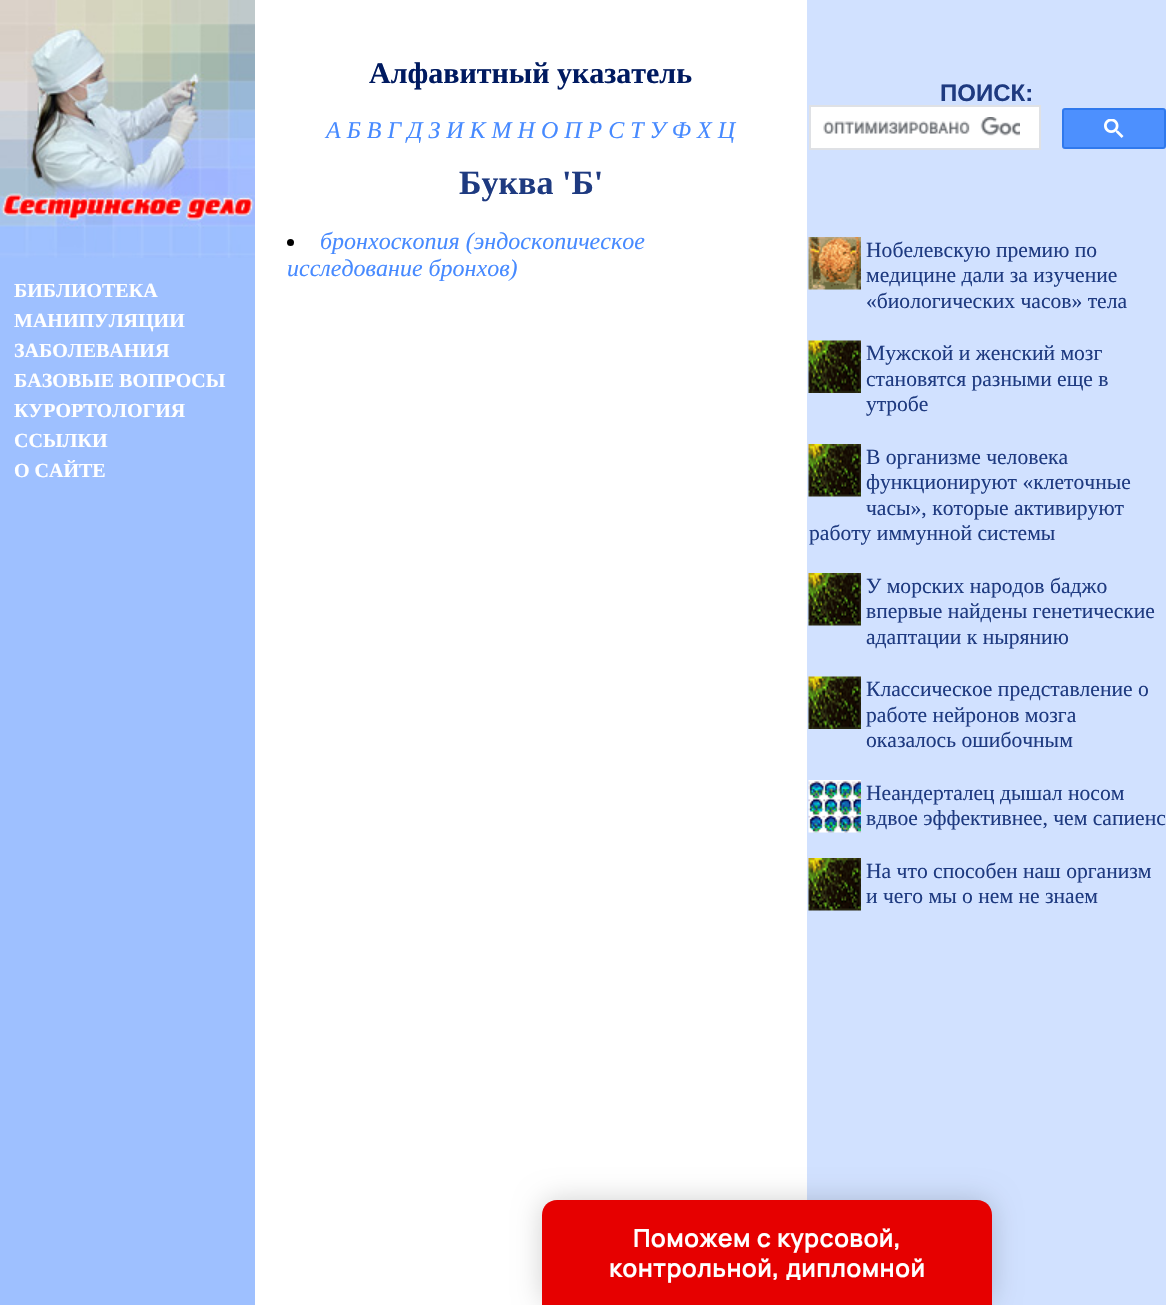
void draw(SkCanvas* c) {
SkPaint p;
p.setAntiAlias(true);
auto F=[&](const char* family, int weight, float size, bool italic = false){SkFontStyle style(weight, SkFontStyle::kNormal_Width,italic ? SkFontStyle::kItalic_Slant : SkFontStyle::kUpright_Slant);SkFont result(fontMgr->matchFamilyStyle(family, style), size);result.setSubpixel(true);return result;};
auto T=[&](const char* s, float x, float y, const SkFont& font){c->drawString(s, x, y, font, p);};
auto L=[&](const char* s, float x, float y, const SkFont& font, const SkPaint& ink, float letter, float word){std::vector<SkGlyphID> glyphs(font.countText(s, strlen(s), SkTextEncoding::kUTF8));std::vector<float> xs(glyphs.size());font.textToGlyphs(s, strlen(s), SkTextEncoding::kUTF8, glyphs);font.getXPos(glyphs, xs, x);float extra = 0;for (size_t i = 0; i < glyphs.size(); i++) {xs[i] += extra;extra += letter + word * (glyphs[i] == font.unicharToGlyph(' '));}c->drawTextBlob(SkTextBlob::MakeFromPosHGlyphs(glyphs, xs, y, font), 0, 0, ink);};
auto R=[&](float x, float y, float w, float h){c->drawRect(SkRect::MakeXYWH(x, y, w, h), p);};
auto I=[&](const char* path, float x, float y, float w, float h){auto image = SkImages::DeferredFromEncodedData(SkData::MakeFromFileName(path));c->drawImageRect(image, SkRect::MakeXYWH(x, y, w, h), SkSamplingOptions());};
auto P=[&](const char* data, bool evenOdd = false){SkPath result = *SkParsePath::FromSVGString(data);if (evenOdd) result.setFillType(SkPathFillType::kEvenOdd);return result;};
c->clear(0xffffffff);
p.setColor(0xff9ec0ff);
R(0,258,255,1047);
I("1.png",0,0,255,258);
auto f1 = F("Liberation Serif",700,20);
p.setColor(0xffffffff);
T("БИБЛИОТЕКА",14,297,f1);
T("МАНИПУЛЯЦИИ",14,327,f1);
T("ЗАБОЛЕВАНИЯ",14,357,f1);
T("БАЗОВЫЕ ВОПРОСЫ",14,387,f1);
T("КУРОРТОЛОГИЯ",14,417,f1);
T("ССЫЛКИ",14,447,f1);
T("О САЙТЕ",14,477,f1);
auto f2 = F("Liberation Serif",700,30);
p.setColor(0xff001a60);
T("Алфавитный указатель",369,83,f2);
auto f3 = F("Liberation Serif",400,24,true);
p.setColor(0xff478aff);
T("А Б В Г Д З И К М Н О П Р С Т У Ф Х Ц",326,138,f3);
auto f4 = F("Liberation Serif",700,34);
p.setColor(0xff1e3a80);
T("Буква 'Б'",459,194,f4);
p.setColor(0xff000000);
c->drawCircle(290.5,242.5,3.5,p);
p.setColor(0xff478aff);
T("бронхоскопия (эндоскопическое",320,249,f3);
T("исследование бронхов)",287,276,f3);
p.setColor(0xffd1e1ff);
R(807,0,359,1305);
auto f5 = F("Liberation Sans",700,24);
p.setColor(0xff1e3a80);
T("ПОИСК:",940,101,f5);
p.setColor(0xffffffff);
c->drawRect(SkRect::MakeXYWH(810,106,230,43),p);
p.setStroke(true);
p.setStrokeWidth(2);
p.setColor(0xffdfe1e5);
c->drawRect(SkRect::MakeXYWH(810,106,230,43),p);
I("2.png",823,117,197,19);
p.setStroke(false);
p.setColor(0xff4d90fe);
c->drawRoundRect(SkRect::MakeXYWH(1063,109,102,39),2,2,p);
p.setStroke(true);
p.setColor(0xff3079ed);
c->drawRoundRect(SkRect::MakeXYWH(1063,109,102,39),2,2,p);
I("3.png",1104,119,20,19);
I("4.png",808,237,53,53);
auto f6 = F("Liberation Serif",400,21.6);
p.setStroke(false);
p.setColor(0xff1e3a80);
T("Нобелевскую премию по",866,257,f6);
T("медицине дали за изучение",866,282,f6);
T("«биологических часов» тела",866,308,f6);
I("5.png",808,340,53,53);
T("Мужской и женский мозг",866,360,f6);
T("становятся разными еще в",866,386,f6);
T("утробе",866,411,f6);
I("6.png",808,444,53,53);
T("В организме человека",866,464,f6);
T("функционируют «клеточные",866,489,f6);
T("часы», которые активируют",866,515,f6);
T("работу иммунной системы",809,540,f6);
I("6.png",808,573,53,53);
T("У морских народов баджо",866,593,f6);
T("впервые найдены генетические",866,618,f6);
T("адаптации к нырянию",866,644,f6);
I("5.png",808,676,53,53);
T("Классическое представление о",866,696,f6);
T("работе нейронов мозга",866,722,f6);
T("оказалось ошибочным",866,747,f6);
I("7.png",808,780,53,53);
T("Неандерталец дышал носом",866,800,f6);
T("вдвое эффективнее, чем сапиенс",866,825,f6);
I("6.png",808,858,53,53);
T("На что способен наш организм",866,878,f6);
T("и чего мы о нем не знаем",866,903,f6);
p.setColor(0x2e000000);
p.setMaskFilter(SkMaskFilter::MakeBlur(kNormal_SkBlurStyle, 14));
c->drawRoundRect(SkRect::MakeXYWH(542,1200,450,105),15,15,p);
p.setMaskFilter(nullptr);
p.setColor(0xffe60000);
c->drawPath(P("M557 1200h420c8.5 0 15 6.5 15 15v90h-450v-90c0-8.5 6.5-15 15-15z"),p);
auto f7 = F("Manrope",700,24);
p.setColor(0xffffffff);
L("Поможем с курсовой,",633,1247,f7,p,1,0);
L("контрольной, дипломной",609,1277,f7,p,1,0);
}
